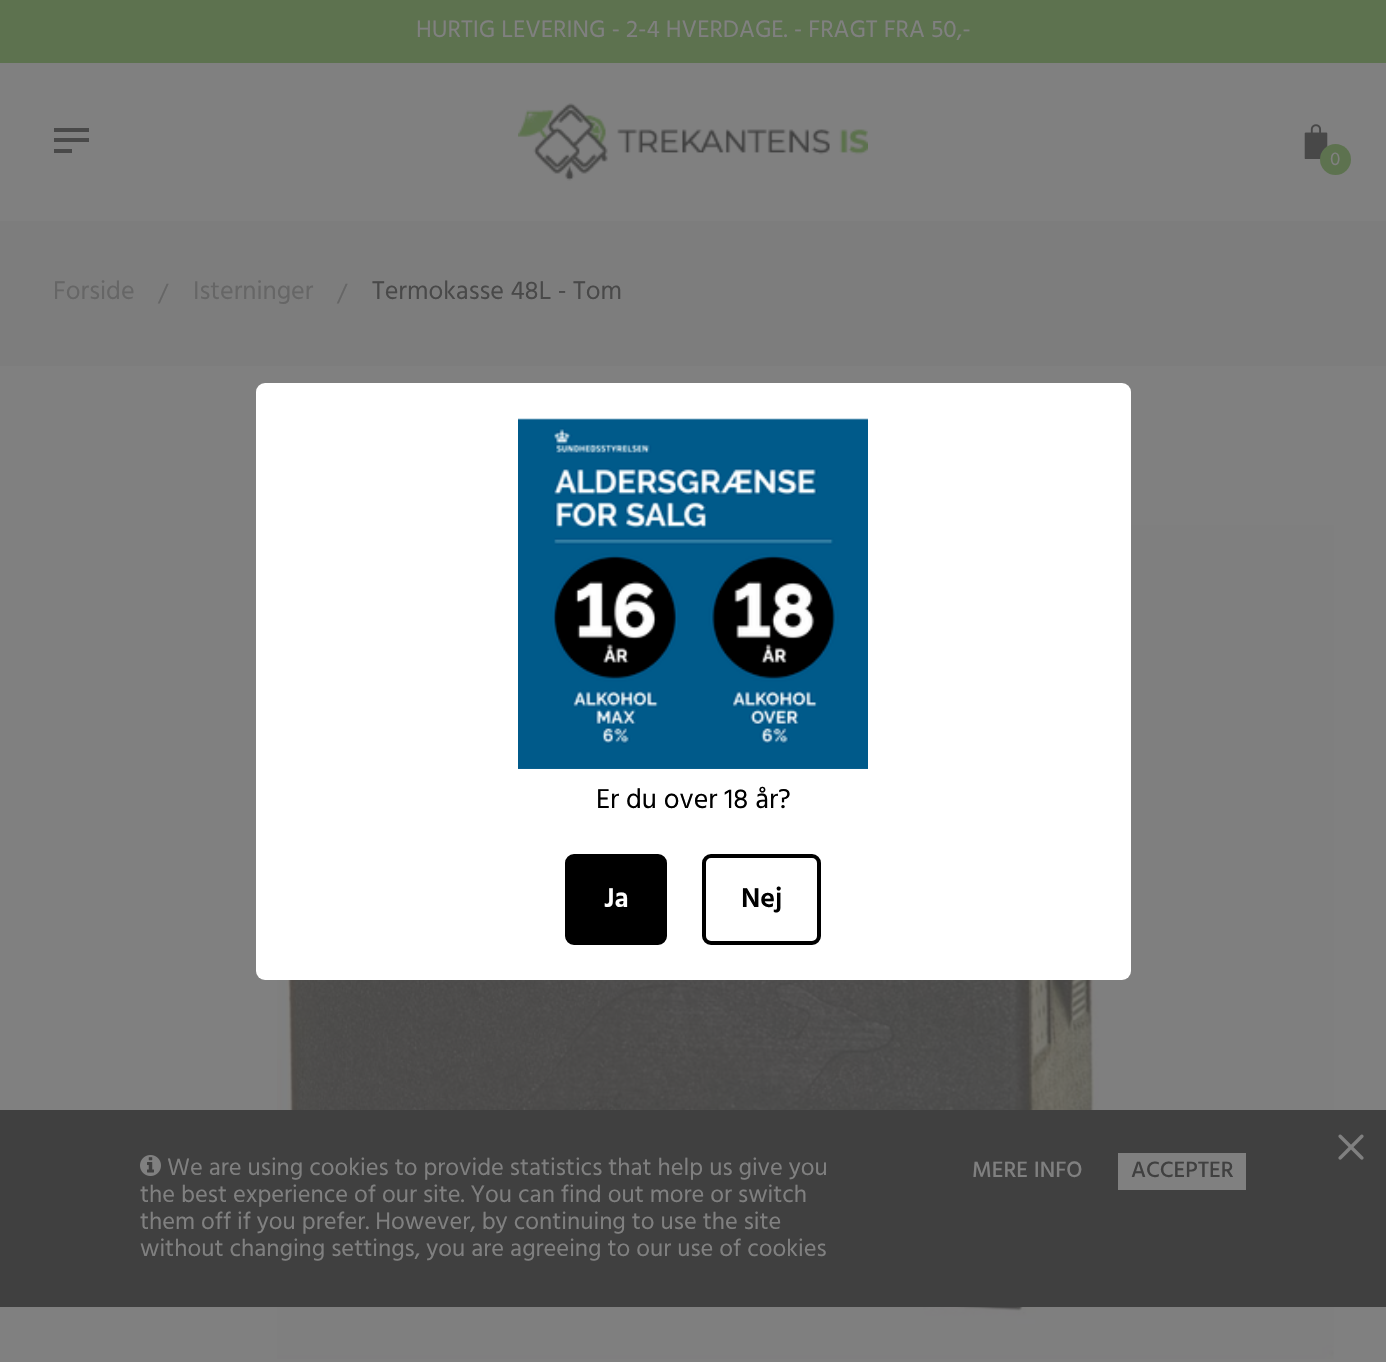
void draw(SkCanvas* c) {
SkPaint p;
p.setAntiAlias(true);
auto F=[&](const char* family, int weight, float size, bool italic = false){SkFontStyle style(weight, SkFontStyle::kNormal_Width,italic ? SkFontStyle::kItalic_Slant : SkFontStyle::kUpright_Slant);SkFont result(fontMgr->matchFamilyStyle(family, style), size);result.setSubpixel(true);return result;};
auto T=[&](const char* s, float x, float y, const SkFont& font){c->drawString(s, x, y, font, p);};
auto R=[&](float x, float y, float w, float h){c->drawRect(SkRect::MakeXYWH(x, y, w, h), p);};
auto Q=[&](float x, float y, float w, float h, float radius){c->drawRoundRect(SkRect::MakeXYWH(x, y, w, h), radius, radius, p);};
auto I=[&](const char* path, float x, float y, float w, float h){auto image = SkImages::DeferredFromEncodedData(SkData::MakeFromFileName(path));c->drawImageRect(image, SkRect::MakeXYWH(x, y, w, h), SkSamplingOptions());};
c->clear(0xff808080);
p.setColor(0xff5d724f);
R(0,0,1386,63);
auto f1 = F("Hind",400,24.5);
p.setColor(0xff808080);
T("HURTIG LEVERING - 2-4 HVERDAGE. - FRAGT FRA 50,-",416,37,f1);
p.setColor(0xff494949);
R(54,128,35,4);
R(54,138,35,4);
R(54,149,18,4);
I("1.png",518,103,350,78);
I("2.png",1304,124,24,35);
p.setColor(0xff5d724f);
c->drawCircle(1335.5,159.5,15.5,p);
auto f2 = F("Hind",400,19);
p.setColor(0xff808080);
T("0",1330,165,f2);
p.setColor(0xff7d7d7d);
R(0,221,1386,145);
auto f3 = F("Hind",400,26.25);
p.setColor(0xff666666);
T("Forside",53,299,f3);
T("/",158,301,f1);
T("Isterninger",193,299,f3);
T("/",337,301,f1);
p.setColor(0xff494949);
T("Termokasse 48L - Tom",372,299,f3);
I("3.png",277,525,1057,835);
p.setColor(0xffffffff);
Q(256,383,875,597,9);
I("4.png",518,418,350,351);
auto f4 = F("Hind",400,28);
p.setColor(0xff000000);
T("Er du over 18 år?",596,808,f4);
c->drawRoundRect(SkRect::MakeXYWH(567,856,98,87),7,7,p);
p.setStroke(true);
p.setStrokeWidth(4);
c->drawRoundRect(SkRect::MakeXYWH(567,856,98,87),7,7,p);
auto f5 = F("Hind",600,28);
p.setStroke(false);
p.setColor(0xffffffff);
T("Ja",604,907,f5);
p.setStroke(true);
p.setColor(0xff000000);
c->drawRoundRect(SkRect::MakeXYWH(704,856,115,87),7,7,p);
p.setStroke(false);
T("Nej",741,907,f5);
p.setColor(0xff404040);
R(0,1110,1386,197);
I("5.png",1338,1134,26,26);
I("6.png",140,1155,21,21);
p.setColor(0xff808080);
T("We are using cookies to provide statistics that help us give you",167,1175,f1);
T("the best experience of our site. You can find out more or switch",140,1202,f1);
T("them off if you prefer. However, by continuing to use the site",140,1229,f1);
T("without changing settings, you are agreeing to our use of cookies",140,1256,f1);
auto f6 = F("Hind",500,22.75);
T("MERE INFO",972,1177,f6);
R(1118,1153,128,37);
p.setColor(0xff404040);
T("ACCEPTER",1131,1177,f6);
}
